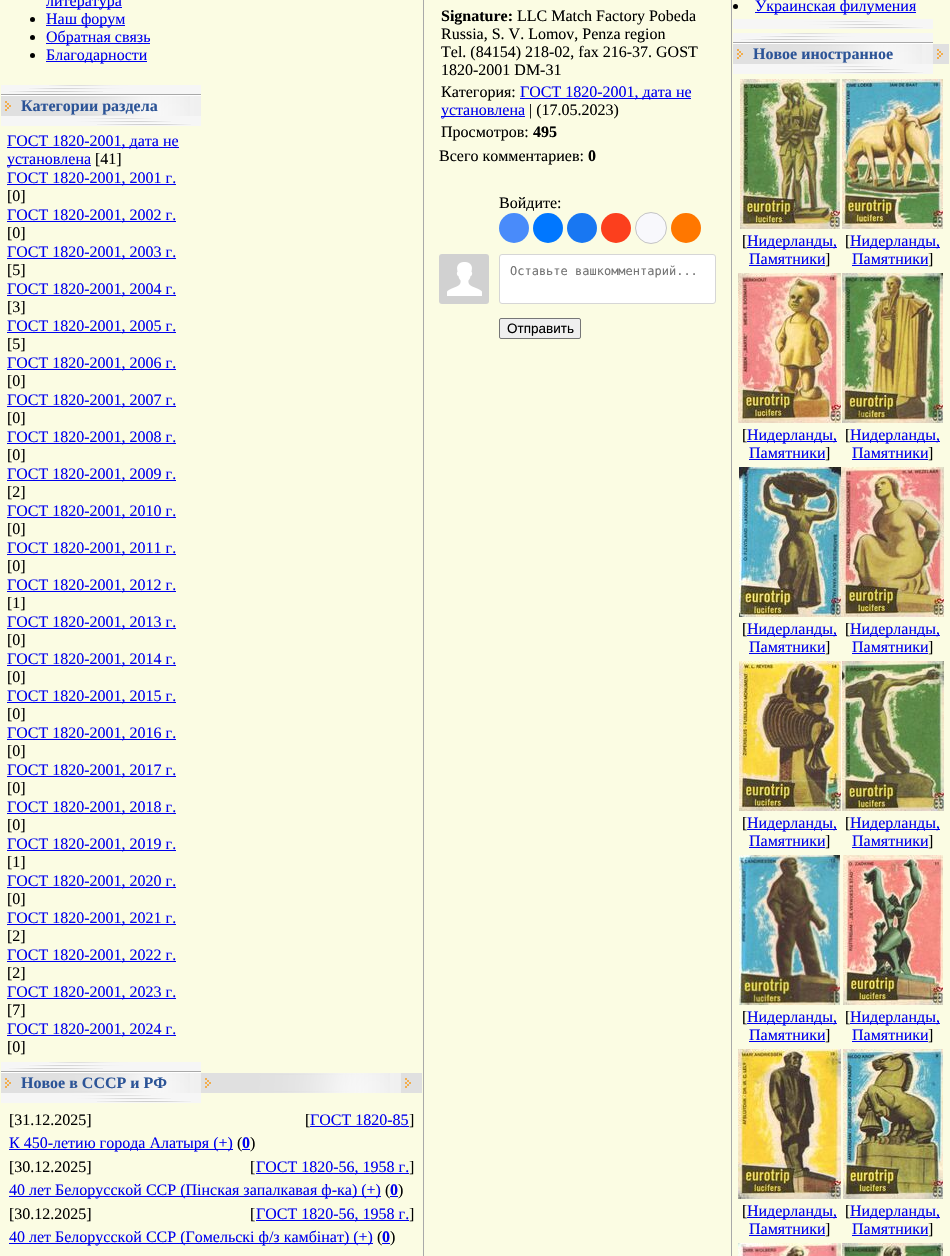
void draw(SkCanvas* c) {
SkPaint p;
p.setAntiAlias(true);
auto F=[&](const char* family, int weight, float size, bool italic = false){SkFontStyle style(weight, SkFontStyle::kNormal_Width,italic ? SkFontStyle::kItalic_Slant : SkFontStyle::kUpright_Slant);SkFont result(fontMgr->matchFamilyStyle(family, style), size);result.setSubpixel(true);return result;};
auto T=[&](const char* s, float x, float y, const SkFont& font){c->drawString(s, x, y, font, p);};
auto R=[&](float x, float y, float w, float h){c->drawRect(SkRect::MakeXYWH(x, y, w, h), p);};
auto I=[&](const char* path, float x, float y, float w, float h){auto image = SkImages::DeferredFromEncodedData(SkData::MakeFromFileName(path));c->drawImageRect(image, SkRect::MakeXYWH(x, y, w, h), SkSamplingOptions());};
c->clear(0xfffbfce3);
p.setColor(0xff0000ee);
R(46,7,76,1);
auto f1 = F("Liberation Serif",400,16);
T("литература",46,6,f1);
p.setColor(0xff000000);
c->drawCircle(32.5,19.5,2.5,p);
p.setColor(0xff0000ee);
R(46,25,79,1);
T("Наш форум",46,24,f1);
p.setColor(0xff000000);
c->drawCircle(32.5,37.5,2.5,p);
p.setColor(0xff0000ee);
R(46,43,104,1);
T("Обратная связь",46,42,f1);
p.setColor(0xff000000);
c->drawCircle(32.5,55.5,2.5,p);
p.setColor(0xff0000ee);
R(46,61,101,1);
T("Благодарности",46,60,f1);
I("1.png",1,85,200,11);
I("2.png",1,96,200,20);
auto f2 = F("Liberation Serif",700,16);
p.setColor(0xff2c5497);
T("Категории раздела",21,111,f2);
I("3.png",1,116,200,10);
p.setColor(0xff0000ee);
R(7,147,172,1);
T("ГОСТ 1820-2001, дата не",7,146,f1);
R(7,165,84,1);
T("установлена",7,164,f1);
p.setColor(0xff000000);
T("[41]",95,164,f1);
p.setColor(0xff0000ee);
R(7,184,169,1);
T("ГОСТ 1820-2001, 2001 г.",7,183,f1);
p.setColor(0xff000000);
T("[0]",7,201,f1);
p.setColor(0xff0000ee);
R(7,221,169,1);
T("ГОСТ 1820-2001, 2002 г.",7,220,f1);
p.setColor(0xff000000);
T("[0]",7,238,f1);
p.setColor(0xff0000ee);
R(7,258,169,1);
T("ГОСТ 1820-2001, 2003 г.",7,257,f1);
p.setColor(0xff000000);
T("[5]",7,275,f1);
p.setColor(0xff0000ee);
R(7,295,169,1);
T("ГОСТ 1820-2001, 2004 г.",7,294,f1);
p.setColor(0xff000000);
T("[3]",7,312,f1);
p.setColor(0xff0000ee);
R(7,332,169,1);
T("ГОСТ 1820-2001, 2005 г.",7,331,f1);
p.setColor(0xff000000);
T("[5]",7,349,f1);
p.setColor(0xff0000ee);
R(7,369,169,1);
T("ГОСТ 1820-2001, 2006 г.",7,368,f1);
p.setColor(0xff000000);
T("[0]",7,386,f1);
p.setColor(0xff0000ee);
R(7,406,169,1);
T("ГОСТ 1820-2001, 2007 г.",7,405,f1);
p.setColor(0xff000000);
T("[0]",7,423,f1);
p.setColor(0xff0000ee);
R(7,443,169,1);
T("ГОСТ 1820-2001, 2008 г.",7,442,f1);
p.setColor(0xff000000);
T("[0]",7,460,f1);
p.setColor(0xff0000ee);
R(7,480,169,1);
T("ГОСТ 1820-2001, 2009 г.",7,479,f1);
p.setColor(0xff000000);
T("[2]",7,497,f1);
p.setColor(0xff0000ee);
R(7,517,169,1);
T("ГОСТ 1820-2001, 2010 г.",7,516,f1);
p.setColor(0xff000000);
T("[0]",7,534,f1);
p.setColor(0xff0000ee);
R(7,554,169,1);
T("ГОСТ 1820-2001, 2011 г.",7,553,f1);
p.setColor(0xff000000);
T("[0]",7,571,f1);
p.setColor(0xff0000ee);
R(7,591,169,1);
T("ГОСТ 1820-2001, 2012 г.",7,590,f1);
p.setColor(0xff000000);
T("[1]",7,608,f1);
p.setColor(0xff0000ee);
R(7,628,169,1);
T("ГОСТ 1820-2001, 2013 г.",7,627,f1);
p.setColor(0xff000000);
T("[0]",7,645,f1);
p.setColor(0xff0000ee);
R(7,665,169,1);
T("ГОСТ 1820-2001, 2014 г.",7,664,f1);
p.setColor(0xff000000);
T("[0]",7,682,f1);
p.setColor(0xff0000ee);
R(7,702,169,1);
T("ГОСТ 1820-2001, 2015 г.",7,701,f1);
p.setColor(0xff000000);
T("[0]",7,719,f1);
p.setColor(0xff0000ee);
R(7,739,169,1);
T("ГОСТ 1820-2001, 2016 г.",7,738,f1);
p.setColor(0xff000000);
T("[0]",7,756,f1);
p.setColor(0xff0000ee);
R(7,776,169,1);
T("ГОСТ 1820-2001, 2017 г.",7,775,f1);
p.setColor(0xff000000);
T("[0]",7,793,f1);
p.setColor(0xff0000ee);
R(7,813,169,1);
T("ГОСТ 1820-2001, 2018 г.",7,812,f1);
p.setColor(0xff000000);
T("[0]",7,830,f1);
p.setColor(0xff0000ee);
R(7,850,169,1);
T("ГОСТ 1820-2001, 2019 г.",7,849,f1);
p.setColor(0xff000000);
T("[1]",7,867,f1);
p.setColor(0xff0000ee);
R(7,887,169,1);
T("ГОСТ 1820-2001, 2020 г.",7,886,f1);
p.setColor(0xff000000);
T("[0]",7,904,f1);
p.setColor(0xff0000ee);
R(7,924,169,1);
T("ГОСТ 1820-2001, 2021 г.",7,923,f1);
p.setColor(0xff000000);
T("[2]",7,941,f1);
p.setColor(0xff0000ee);
R(7,961,169,1);
T("ГОСТ 1820-2001, 2022 г.",7,960,f1);
p.setColor(0xff000000);
T("[2]",7,978,f1);
p.setColor(0xff0000ee);
R(7,998,169,1);
T("ГОСТ 1820-2001, 2023 г.",7,997,f1);
p.setColor(0xff000000);
T("[7]",7,1015,f1);
p.setColor(0xff0000ee);
R(7,1035,169,1);
T("ГОСТ 1820-2001, 2024 г.",7,1034,f1);
p.setColor(0xff000000);
T("[0]",7,1052,f1);
I("1.png",1,1062,200,11);
I("4.png",1,1073,421,20);
p.setColor(0xff2c5497);
T("Новое в СССР и РФ",21,1088,f2);
I("3.png",1,1093,200,10);
p.setColor(0xff000000);
T("[31.12.2025]",9,1125,f1);
T("[",305,1125,f1);
p.setColor(0xff0000ee);
T("ГОСТ 1820-85",310,1125,f1);
R(310,1126,99,1);
p.setColor(0xff000000);
T("]",409,1125,f1);
p.setColor(0xff0000ee);
R(9,1149,224,1);
T("К 450-летию города Алатыря (+)",9,1148,f1);
p.setColor(0xff000000);
T("(",237,1148,f1);
p.setColor(0xff0000ee);
R(242,1149,8,1);
T("0",242,1148,f2);
p.setColor(0xff000000);
T(")",250,1148,f1);
T("[30.12.2025]",9,1172,f1);
T("[",250,1172,f1);
p.setColor(0xff0000ee);
R(256,1173,153,1);
T("ГОСТ 1820-56, 1958 г.",256,1172,f1);
p.setColor(0xff000000);
T("]",409,1172,f1);
p.setColor(0xff0000ee);
R(9,1196,372,1);
T("40 лет Белорусской ССР (Пiнская запалкавая ф-ка) (+)",9,1195,f1);
p.setColor(0xff000000);
T("(",385,1195,f1);
p.setColor(0xff0000ee);
R(390,1196,8,1);
T("0",390,1195,f2);
p.setColor(0xff000000);
T(")",398,1195,f1);
T("[30.12.2025]",9,1219,f1);
T("[",250,1219,f1);
p.setColor(0xff0000ee);
R(256,1220,153,1);
T("ГОСТ 1820-56, 1958 г.",256,1219,f1);
p.setColor(0xff000000);
T("]",409,1219,f1);
p.setColor(0xff0000ee);
R(9,1243,364,1);
T("40 лет Белорусской ССР (Гомельскi ф/з камбiнат) (+)",9,1242,f1);
p.setColor(0xff000000);
T("(",377,1242,f1);
p.setColor(0xff0000ee);
R(382,1243,8,1);
T("0",382,1242,f2);
p.setColor(0xff000000);
T(")",390,1242,f1);
p.setColor(0xffa9a9a9);
R(731,0,1,1256);
R(423,0,1,1256);
p.setColor(0xff000000);
T("Signature:",441,21,f2);
T("LLC Match Factory Pobeda",517,21,f1);
T("Russia, S. V. Lomov, Penza region",441,39,f1);
T("Tel. (84154) 218-02, fax 216-37. GOST",441,57,f1);
T("1820-2001 DM-31",441,75,f1);
T("Категория:",441,97,f1);
p.setColor(0xff0000ee);
R(520,98,171,1);
T("ГОСТ 1820-2001, дата не",520,97,f1);
R(441,116,84,1);
T("установлена",441,115,f1);
p.setColor(0xff000000);
T("| (17.05.2023)",529,115,f1);
T("Просмотров:",441,137,f1);
T("495",533,137,f2);
T("Всего комментариев:",439,161,f1);
T("0",588,161,f2);
T("Войдите:",499,208,f1);
p.setColor(0xff498bfa);
c->drawCircle(514,228,15,p);
p.setColor(0xff0077ff);
c->drawCircle(548,228,15,p);
p.setColor(0xff1877f2);
c->drawCircle(582,228,15,p);
p.setColor(0xfffc3f1d);
c->drawCircle(616,228,15,p);
p.setColor(0xfff8f8fc);
c->drawCircle(651,228,15.5,p);
p.setStroke(true);
p.setStrokeWidth(1);
p.setColor(0xffc4c4c4);
c->drawCircle(651,228,15.5,p);
p.setStroke(false);
p.setColor(0xffff7700);
c->drawCircle(686,228,15,p);
I("5.png",439,254,50,50);
p.setColor(0xffffffff);
c->drawRoundRect(SkRect::MakeXYWH(499.5,254.5,216,49),2.5,2.5,p);
p.setStroke(true);
p.setColor(0xffd6d6d6);
c->drawRoundRect(SkRect::MakeXYWH(499.5,254.5,216,49),2.5,2.5,p);
auto f3 = F("DejaVu Sans Mono",400,12);
p.setStroke(false);
p.setColor(0xff757575);
T("Оставьте вашкомментарий...",510,275,f3);
p.setColor(0xffefefef);
c->drawRoundRect(SkRect::MakeXYWH(499.5,318.5,81,20),1.5,1.5,p);
p.setStroke(true);
p.setColor(0xff767676);
c->drawRoundRect(SkRect::MakeXYWH(499.5,318.5,81,20),1.5,1.5,p);
auto f4 = F("Liberation Sans",400,13.5);
p.setStroke(false);
p.setColor(0xff000000);
T("Отправить",507,333,f4);
c->drawCircle(735.5,6.5,2.5,p);
p.setColor(0xff0000ee);
R(755,12,161,1);
T("Украинская филумения",755,11,f1);
I("3.png",733,19,200,10);
I("1.png",733,33,200,11);
I("6.png",733,44,216,20);
p.setColor(0xff2c5497);
T("Новое иностранное",753,59,f2);
I("3.png",733,64,200,10);
I("7.png",740,79,100,150);
p.setColor(0xff000000);
T("[",742,246,f1);
p.setColor(0xff0000ee);
R(747,247,90,1);
T("Нидерланды,",747,246,f1);
T("Памятники",749,264,f1);
R(749,265,76,1);
p.setColor(0xff000000);
T("]",825,264,f1);
I("8.png",842,79,101,150);
T("[",845,246,f1);
p.setColor(0xff0000ee);
R(850,247,90,1);
T("Нидерланды,",850,246,f1);
T("Памятники",852,264,f1);
R(852,265,76,1);
p.setColor(0xff000000);
T("]",928,264,f1);
I("9.png",738,273,103,150);
T("[",742,440,f1);
p.setColor(0xff0000ee);
R(747,441,90,1);
T("Нидерланды,",747,440,f1);
T("Памятники",749,458,f1);
R(749,459,76,1);
p.setColor(0xff000000);
T("]",825,458,f1);
I("10.png",842,273,101,150);
T("[",845,440,f1);
p.setColor(0xff0000ee);
R(850,441,90,1);
T("Нидерланды,",850,440,f1);
T("Памятники",852,458,f1);
R(852,459,76,1);
p.setColor(0xff000000);
T("]",928,458,f1);
I("11.png",739,467,102,150);
T("[",742,634,f1);
p.setColor(0xff0000ee);
R(747,635,90,1);
T("Нидерланды,",747,634,f1);
T("Памятники",749,652,f1);
R(749,653,76,1);
p.setColor(0xff000000);
T("]",825,652,f1);
I("12.png",841,467,103,150);
T("[",845,634,f1);
p.setColor(0xff0000ee);
R(850,635,90,1);
T("Нидерланды,",850,634,f1);
T("Памятники",852,652,f1);
R(852,653,76,1);
p.setColor(0xff000000);
T("]",928,652,f1);
I("13.png",739,661,102,150);
T("[",742,828,f1);
p.setColor(0xff0000ee);
R(747,829,90,1);
T("Нидерланды,",747,828,f1);
T("Памятники",749,846,f1);
R(749,847,76,1);
p.setColor(0xff000000);
T("]",825,846,f1);
I("14.png",842,661,102,150);
T("[",845,828,f1);
p.setColor(0xff0000ee);
R(850,829,90,1);
T("Нидерланды,",850,828,f1);
T("Памятники",852,846,f1);
R(852,847,76,1);
p.setColor(0xff000000);
T("]",928,846,f1);
I("15.png",739,855,101,150);
T("[",742,1022,f1);
p.setColor(0xff0000ee);
R(747,1023,90,1);
T("Нидерланды,",747,1022,f1);
T("Памятники",749,1040,f1);
R(749,1041,76,1);
p.setColor(0xff000000);
T("]",825,1040,f1);
I("16.png",843,855,100,150);
T("[",845,1022,f1);
p.setColor(0xff0000ee);
R(850,1023,90,1);
T("Нидерланды,",850,1022,f1);
T("Памятники",852,1040,f1);
R(852,1041,76,1);
p.setColor(0xff000000);
T("]",928,1040,f1);
I("17.png",738,1049,103,150);
T("[",742,1216,f1);
p.setColor(0xff0000ee);
R(747,1217,90,1);
T("Нидерланды,",747,1216,f1);
T("Памятники",749,1234,f1);
R(749,1235,76,1);
p.setColor(0xff000000);
T("]",825,1234,f1);
I("18.png",843,1049,100,150);
T("[",845,1216,f1);
p.setColor(0xff0000ee);
R(850,1217,90,1);
T("Нидерланды,",850,1216,f1);
T("Памятники",852,1234,f1);
R(852,1235,76,1);
p.setColor(0xff000000);
T("]",928,1234,f1);
I("19.png",738,1243,103,13);
I("20.png",842,1243,101,13);
}
